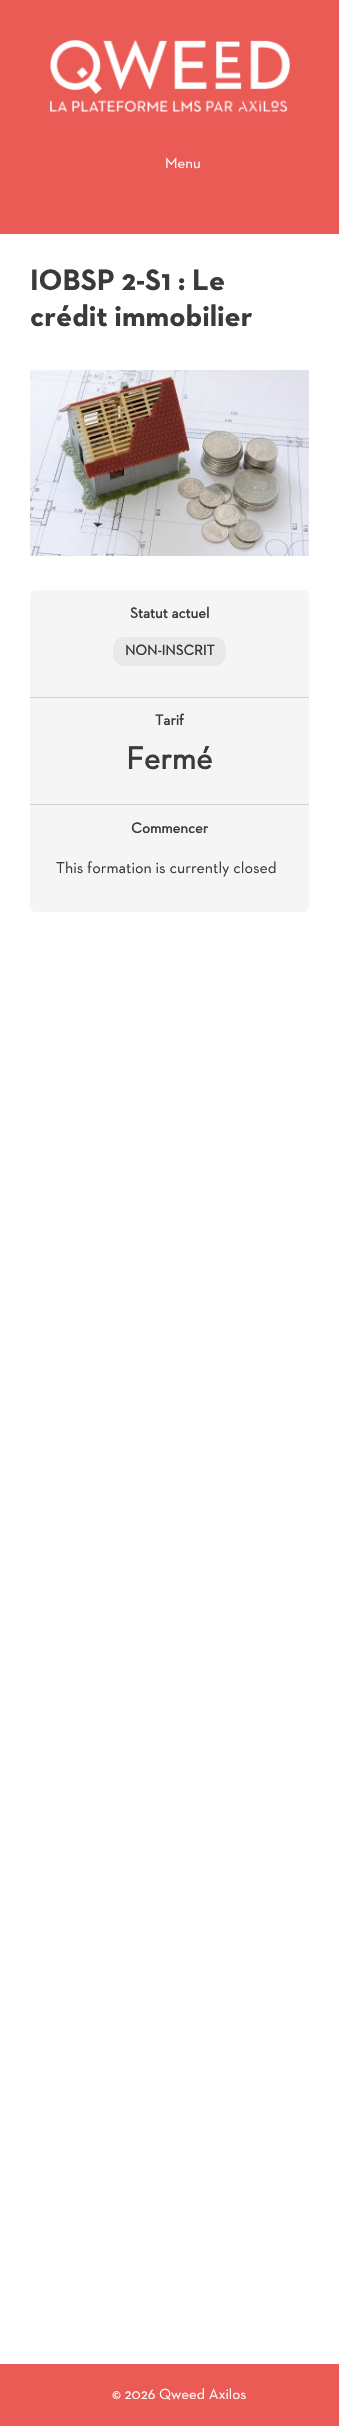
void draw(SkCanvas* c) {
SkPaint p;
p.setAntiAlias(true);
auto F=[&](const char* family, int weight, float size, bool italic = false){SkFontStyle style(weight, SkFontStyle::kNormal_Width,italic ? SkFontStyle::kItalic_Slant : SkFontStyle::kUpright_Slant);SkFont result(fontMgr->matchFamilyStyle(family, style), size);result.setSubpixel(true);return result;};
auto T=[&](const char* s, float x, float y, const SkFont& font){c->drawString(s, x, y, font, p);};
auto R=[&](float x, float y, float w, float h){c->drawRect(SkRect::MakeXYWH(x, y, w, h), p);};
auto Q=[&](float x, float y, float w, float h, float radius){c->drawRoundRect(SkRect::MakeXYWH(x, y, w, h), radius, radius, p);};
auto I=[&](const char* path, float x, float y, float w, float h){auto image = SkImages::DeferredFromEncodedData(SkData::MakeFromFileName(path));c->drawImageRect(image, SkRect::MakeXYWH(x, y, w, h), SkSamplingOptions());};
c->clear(0xffffffff);
p.setColor(0xffeb5b56);
R(0,0,339,234);
I("1.png",50,40,240,73);
auto f1 = F("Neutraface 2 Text",400,15);
p.setColor(0xffffffff);
T("Menu",165,168,f1);
auto f2 = F("Neutraface 2 Text",700,30);
p.setColor(0xff3a3a3a);
T("IOBSP 2-S1 : Le",30,290,f2);
T("crédit immobilier",30,326,f2);
I("2.png",30,370,279,186);
p.setColor(0xfff5f5f5);
Q(30,590,279,322,6);
p.setColor(0xffd0d0d0);
R(30,697,279,1);
auto f3 = F("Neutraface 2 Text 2",700,15);
p.setColor(0xff3a3a3a);
T("Statut actuel",130,618,f3);
p.setColor(0xffe9e9e9);
Q(113,637,113,29,12);
auto f4 = F("Neutraface 2 Text 2",700,14.5);
p.setColor(0xff3a3a3a);
T("NON-INSCRIT",125,655,f4);
p.setColor(0xffd0d0d0);
R(30,804,279,1);
p.setColor(0xff3a3a3a);
T("Tarif",155,725,f3);
auto f5 = F("Neutraface 2 Text 2",700,32);
T("Fermé",126,769,f5);
T("Commencer",131,833,f3);
auto f6 = F("Neutraface 2 Text",400,16);
T("This formation is currently closed",56,873,f6);
p.setColor(0xffeb5b56);
R(0,2364,339,62);
p.setColor(0xffffffff);
T("© 2026 Qweed Axilos",112,2399,f1);
}
